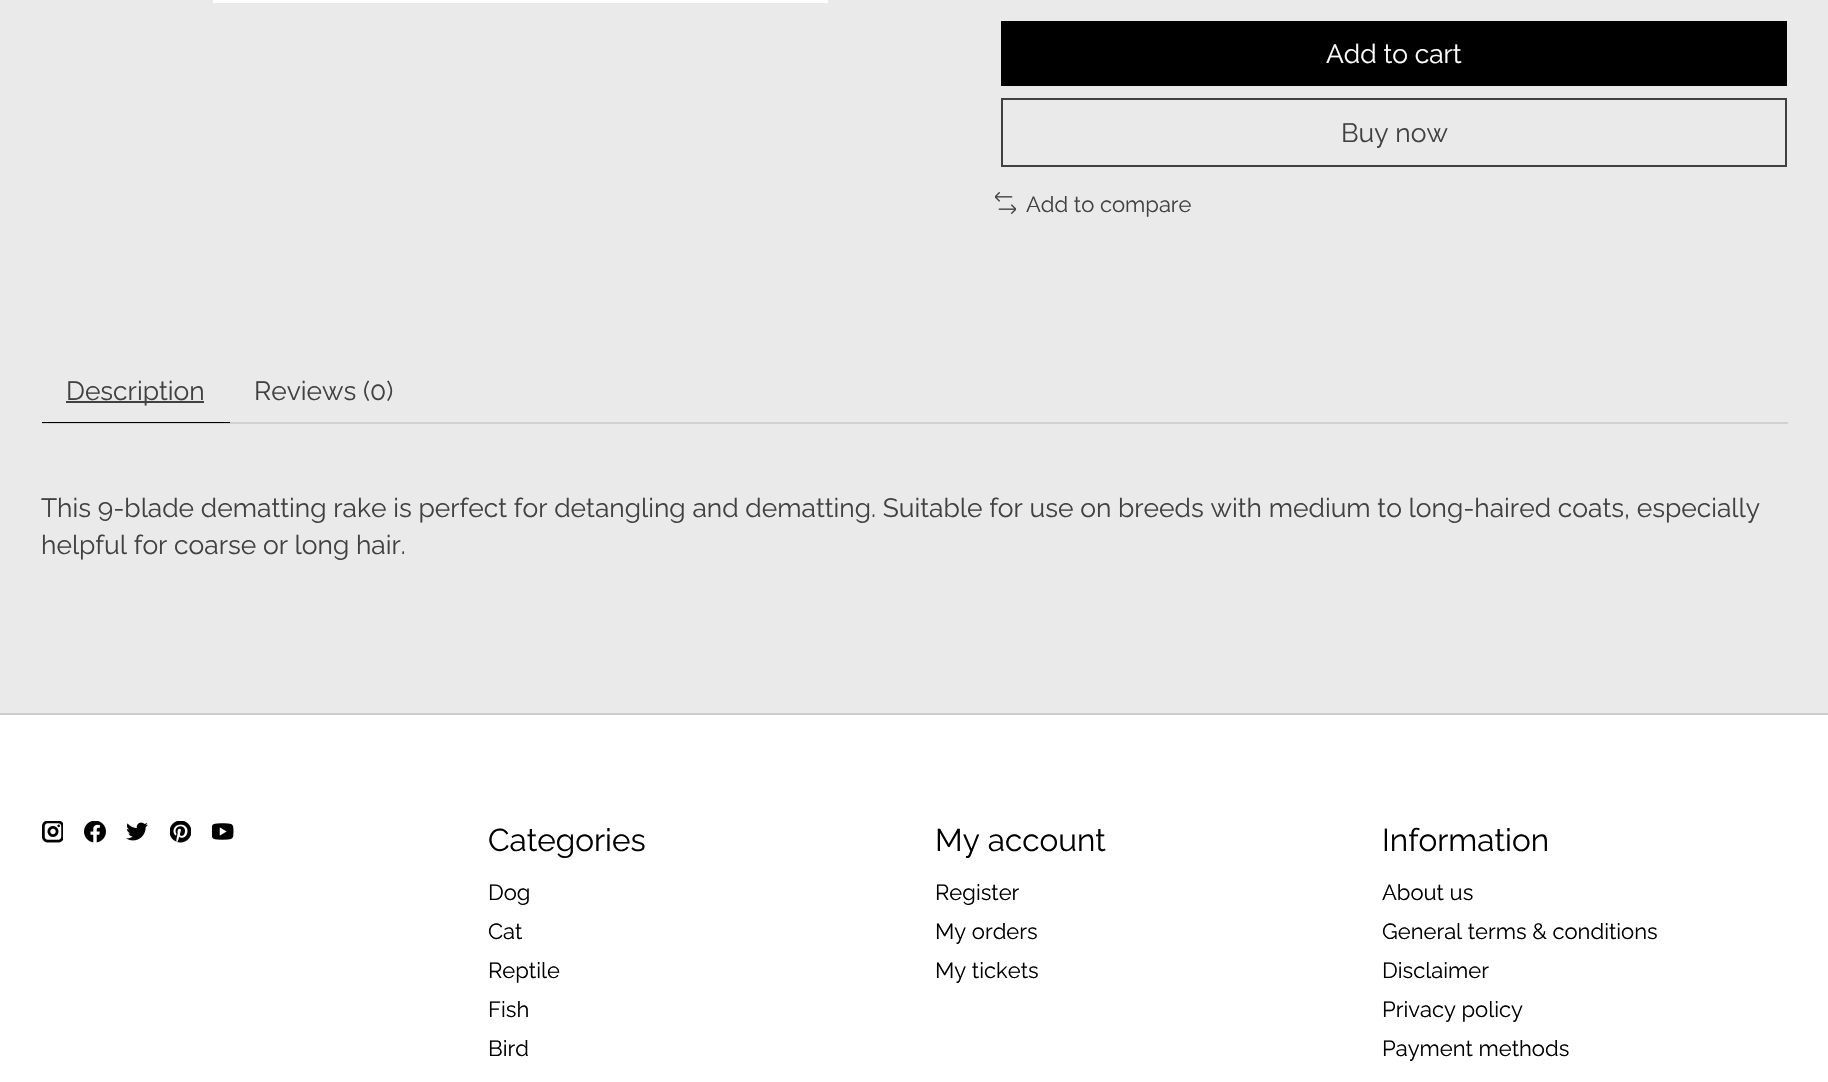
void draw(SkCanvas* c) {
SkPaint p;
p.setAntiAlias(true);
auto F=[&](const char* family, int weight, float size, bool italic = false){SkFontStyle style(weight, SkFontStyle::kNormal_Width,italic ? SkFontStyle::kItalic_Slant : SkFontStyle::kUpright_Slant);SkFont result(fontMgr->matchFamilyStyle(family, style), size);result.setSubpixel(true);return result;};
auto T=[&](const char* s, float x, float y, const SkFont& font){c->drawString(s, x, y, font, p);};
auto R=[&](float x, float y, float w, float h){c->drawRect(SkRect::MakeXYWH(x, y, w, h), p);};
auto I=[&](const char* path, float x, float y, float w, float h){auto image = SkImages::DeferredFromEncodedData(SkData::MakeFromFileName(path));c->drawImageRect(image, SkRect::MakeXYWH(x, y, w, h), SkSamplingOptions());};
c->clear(0xffeaeaea);
p.setColor(0xffffffff);
R(213,0,615,3);
p.setColor(0xff000000);
R(1001,21,786,65);
auto f1 = F("Raleway",400,26.4);
p.setColor(0xffffffff);
T("Add to cart",1326,63,f1);
p.setStroke(true);
p.setStrokeWidth(2);
p.setColor(0xff414141);
c->drawRect(SkRect::MakeXYWH(1002,99,784,67),p);
p.setStroke(false);
T("Buy now",1341,142,f1);
I("1.png",995,192,21,22);
auto f2 = F("Raleway",400,22);
T("Add to compare",1026,212,f2);
p.setColor(0xffd1d1d1);
R(42,422,1746,2);
p.setColor(0xff000000);
R(42,422,188,1);
p.setColor(0xff414141);
R(66,401,138,2);
T("Description",66,400,f1);
T("Reviews (0)",254,400,f1);
T("This 9-blade dematting rake is perfect for detangling and dematting. Suitable for use on breeds with medium to long-haired coats, especially",41,517,f1);
T("helpful for coarse or long hair.",41,554,f1);
p.setColor(0xffffffff);
R(0,715,1828,367);
p.setColor(0xffcccccc);
R(0,713,1828,2);
I("2.png",42,821,21,22);
I("3.png",84,821,22,22);
I("4.png",126,822,22,19);
I("5.png",170,821,21,22);
I("6.png",212,823,22,17);
auto f3 = F("Raleway",400,31.5);
p.setColor(0xff000000);
T("Categories",488,851,f3);
T("Dog",488,900,f2);
T("Cat",488,939,f2);
T("Reptile",488,978,f2);
T("Fish",488,1017,f2);
T("Bird",488,1056,f2);
T("My account",935,851,f3);
T("Register",935,900,f2);
T("My orders",935,939,f2);
T("My tickets",935,978,f2);
T("Information",1382,851,f3);
T("About us",1382,900,f2);
T("General terms & conditions",1382,939,f2);
T("Disclaimer",1382,978,f2);
T("Privacy policy",1382,1017,f2);
T("Payment methods",1382,1056,f2);
}
